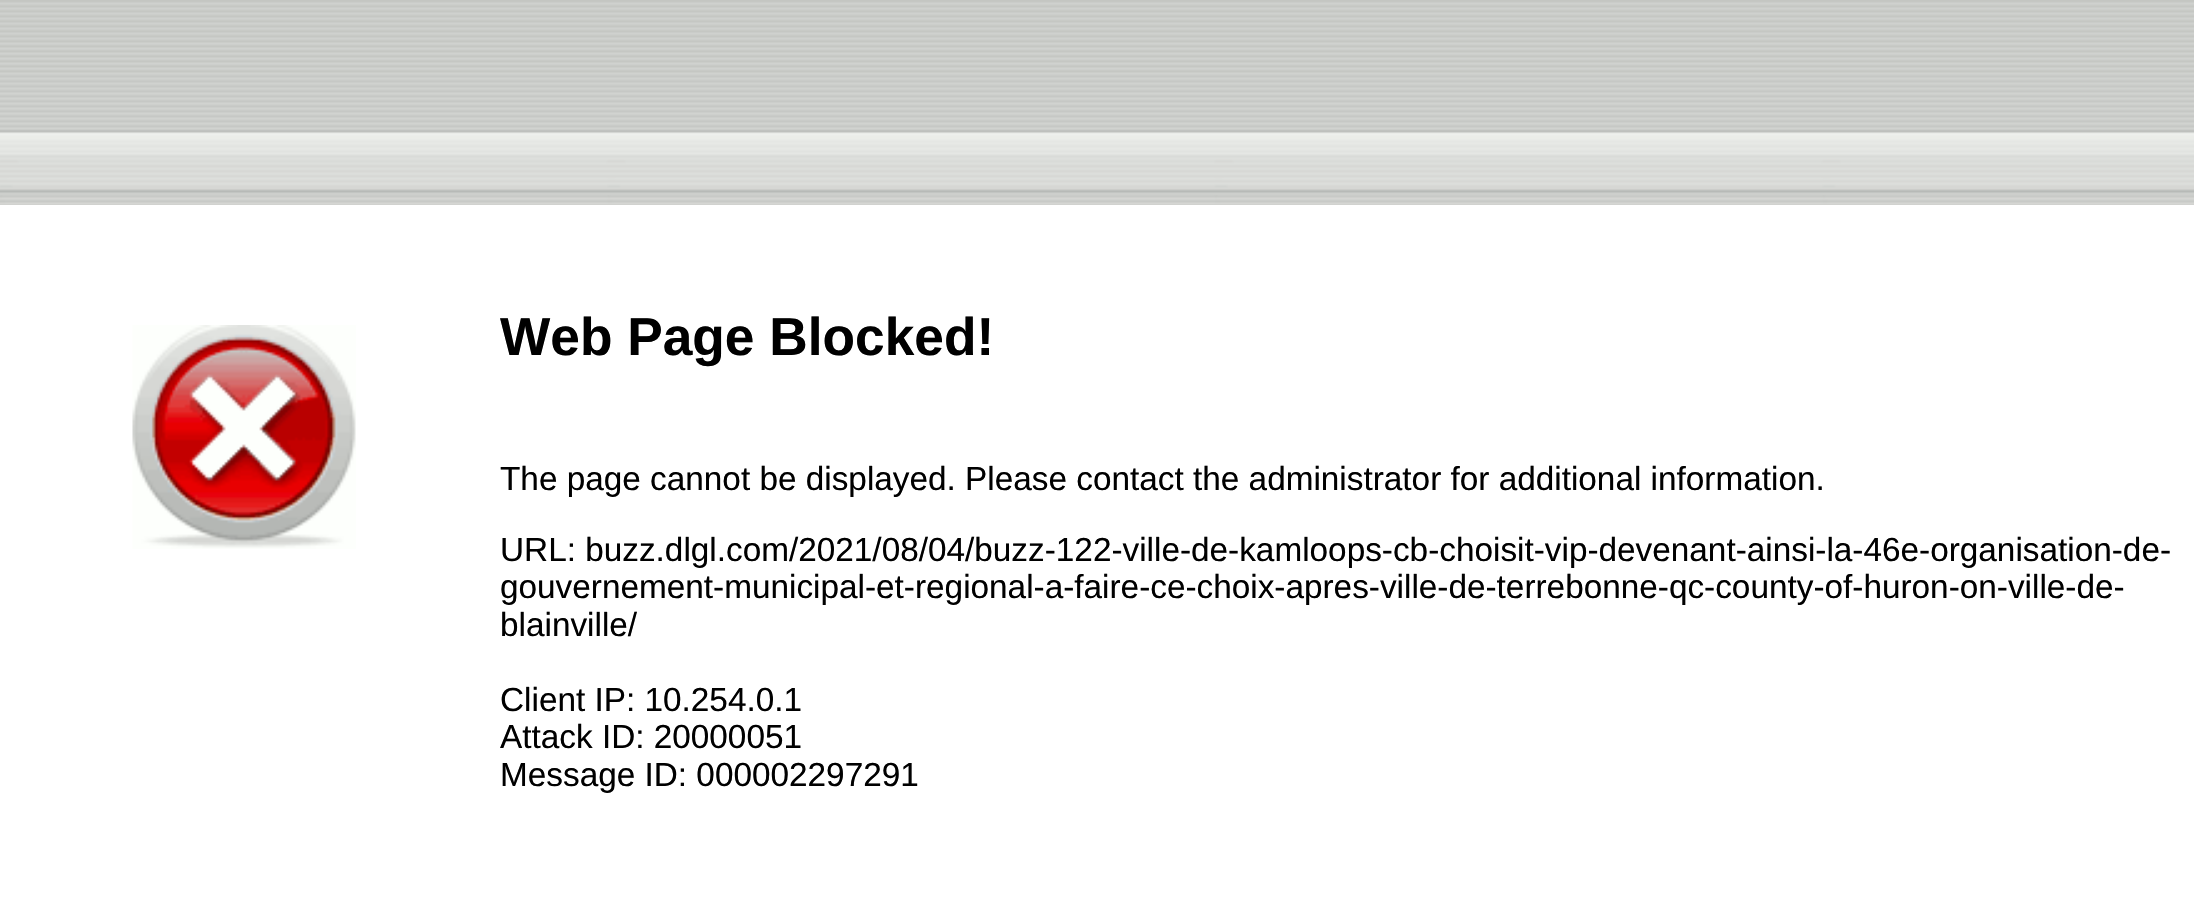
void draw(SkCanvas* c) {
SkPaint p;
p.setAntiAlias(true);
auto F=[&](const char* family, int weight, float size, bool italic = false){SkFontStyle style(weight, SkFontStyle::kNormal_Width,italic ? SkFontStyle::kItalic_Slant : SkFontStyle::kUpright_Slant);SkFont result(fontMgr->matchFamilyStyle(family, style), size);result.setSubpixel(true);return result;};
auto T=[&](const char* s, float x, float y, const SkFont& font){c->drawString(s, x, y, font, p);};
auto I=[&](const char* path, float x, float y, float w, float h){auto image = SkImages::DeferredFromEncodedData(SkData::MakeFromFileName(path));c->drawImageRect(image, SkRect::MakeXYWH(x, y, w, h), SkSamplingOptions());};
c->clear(0xffffffff);
I("1.png",0,0,2194,205);
I("2.png",132,325,224,224);
auto f1 = F("Liberation Sans",700,53.25);
p.setColor(0xff000000);
T("Web Page Blocked!",500,355,f1);
auto f2 = F("Liberation Sans",400,33.33);
T("The page cannot be displayed. Please contact the administrator for additional information.",500,490,f2);
T("URL: buzz.dlgl.com/2021/08/04/buzz-122-ville-de-kamloops-cb-choisit-vip-devenant-ainsi-la-46e-organisation-de-",500,561,f2);
T("gouvernement-municipal-et-regional-a-faire-ce-choix-apres-ville-de-terrebonne-qc-county-of-huron-on-ville-de-",500,598,f2);
T("blainville/",500,636,f2);
T("Client IP: 10.254.0.1",500,711,f2);
T("Attack ID: 20000051",500,748,f2);
T("Message ID: 000002297291",500,786,f2);
}
